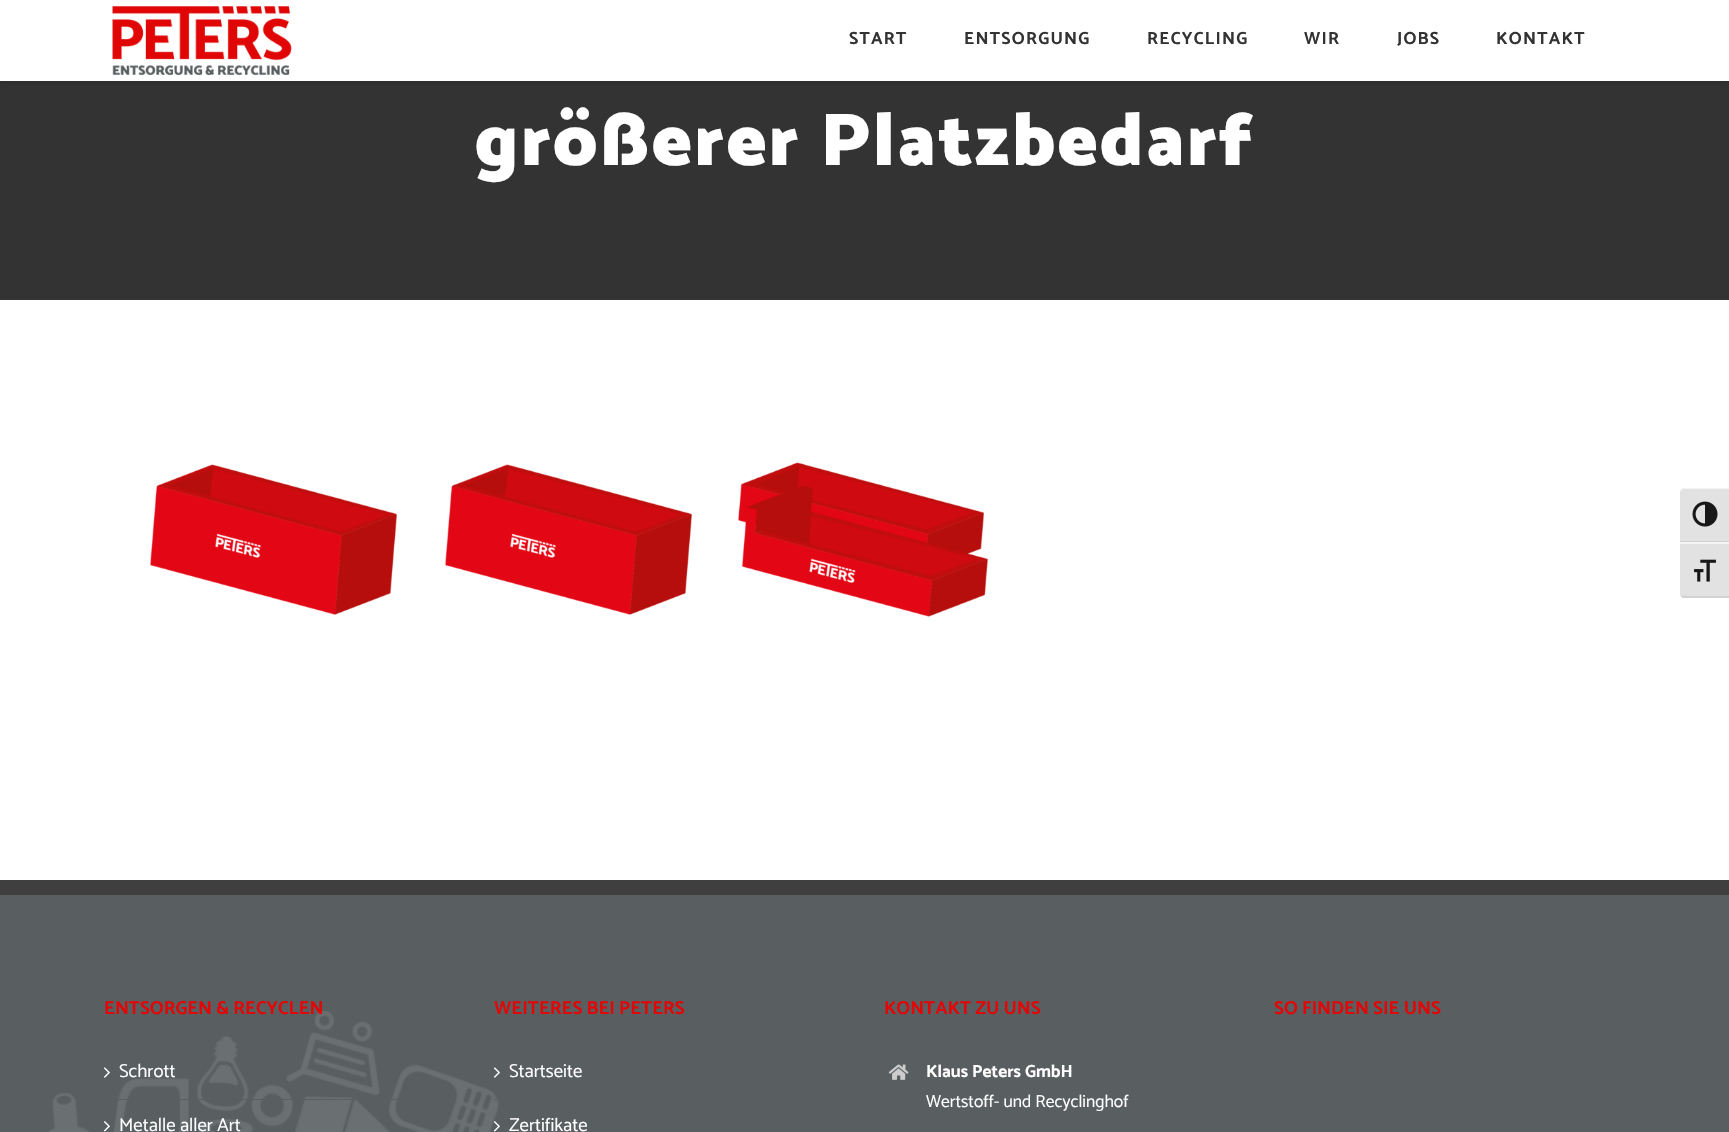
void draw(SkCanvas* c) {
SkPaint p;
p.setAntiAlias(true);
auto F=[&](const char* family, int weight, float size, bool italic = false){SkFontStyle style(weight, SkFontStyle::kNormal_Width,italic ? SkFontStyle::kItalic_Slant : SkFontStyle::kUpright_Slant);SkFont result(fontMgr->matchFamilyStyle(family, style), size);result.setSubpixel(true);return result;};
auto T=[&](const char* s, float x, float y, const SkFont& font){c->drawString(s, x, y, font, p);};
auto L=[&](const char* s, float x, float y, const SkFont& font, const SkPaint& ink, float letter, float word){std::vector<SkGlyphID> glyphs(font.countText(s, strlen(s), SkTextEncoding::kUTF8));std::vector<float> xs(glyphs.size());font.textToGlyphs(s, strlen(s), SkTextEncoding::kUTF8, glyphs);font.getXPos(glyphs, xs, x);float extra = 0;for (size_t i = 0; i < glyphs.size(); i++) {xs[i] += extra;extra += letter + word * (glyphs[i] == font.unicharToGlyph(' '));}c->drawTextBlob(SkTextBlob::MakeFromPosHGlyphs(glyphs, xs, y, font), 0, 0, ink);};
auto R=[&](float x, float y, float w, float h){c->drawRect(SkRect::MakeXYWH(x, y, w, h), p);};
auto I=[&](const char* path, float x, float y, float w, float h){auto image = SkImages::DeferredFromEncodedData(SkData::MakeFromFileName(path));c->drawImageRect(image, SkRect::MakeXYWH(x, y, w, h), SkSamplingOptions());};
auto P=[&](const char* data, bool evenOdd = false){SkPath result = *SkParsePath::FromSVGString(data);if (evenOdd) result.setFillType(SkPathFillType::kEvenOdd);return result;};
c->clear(0xffffffff);
p.setColor(0xff333333);
R(0,81,1729,219);
p.setColor(0x1f000000);
p.setMaskFilter(SkMaskFilter::MakeBlur(kNormal_SkBlurStyle, 2));
c->drawRect(SkRect::MakeXYWH(0,1,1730,82),p);
p.setMaskFilter(nullptr);
p.setColor(0xffffffff);
R(0,0,1729,81);
I("1.png",112,6,180,69);
auto f1 = F("Catamaran",700,17.5);
p.setColor(0xff333333);
L("START",849,44,f1,p,1.25,0);
L("ENTSORGUNG",964,44,f1,p,1.25,0);
L("RECYCLING",1147,44,f1,p,1.25,0);
L("WIR",1304,44,f1,p,1.25,0);
L("JOBS",1397,44,f1,p,1.25,0);
L("KONTAKT",1496,44,f1,p,1.25,0);
auto f2 = F("Catamaran",900,75);
p.setColor(0xffffffff);
L("größerer Platzbedarf",475,165,f2,p,2.5,0);
I("2.png",150,464,247,151);
I("3.png",445,464,247,151);
I("4.png",738,462,251,155);
p.setColor(0xff595e61);
R(0,895,1729,237);
I("5.png",48,1011,451,121);
p.setColor(0xff3f3f3f);
R(0,880,1729,15);
auto f3 = F("Catamaran",700,18.75);
p.setColor(0xffe10707);
T("ENTSORGEN & RECYCLEN",104,1014,f3);
p.setColor(0xff595e61);
R(118,1099,280,1);
I("6.png",103,1067,7,11);
auto f4 = F("Catamaran",400,18.75);
p.setColor(0xffffffff);
T("Schrott",119,1077,f4);
I("7.png",103,1121,7,11);
T("Metalle aller Art",119,1131,f4);
p.setColor(0xffe10707);
T("WEITERES BEI PETERS",494,1014,f3);
p.setColor(0xff595e61);
R(494,1099,4,1);
I("6.png",493,1067,7,11);
p.setColor(0xffffffff);
T("Startseite",509,1077,f4);
I("8.png",493,1121,7,11);
T("Zertifikate",509,1131,f4);
p.setColor(0xffe10707);
T("KONTAKT ZU UNS",884,1014,f3);
I("9.png",888,1064,21,16);
p.setColor(0xffffffff);
T("Klaus Peters GmbH",926,1077,f1);
auto f5 = F("Catamaran",400,17.5);
T("Wertstoff- und Recyclinghof",926,1107,f5);
p.setColor(0xffe10707);
T("SO FINDEN SIE UNS",1274,1014,f3);
p.setColor(0xffe2e2e2);
c->drawPath(P("M1685 488h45v55h-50v-50c0-3 2-5 5-5z"),p);
p.setColor(0xfff5f5f5);
c->drawPath(P("M1685 488c-3 0-5 2-5 4c0-2 2-3 5-3h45v-1z"),p);
p.setColor(0xffd2d2d2);
R(1680,541,49,1);
I("10.png",1692,501,26,26);
p.setColor(0xffe2e2e2);
c->drawPath(P("M1680 543h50v55h-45c-3 0-5-2-5-5z"),p);
p.setColor(0xfff5f5f5);
R(1680,542,49,2);
p.setColor(0xffd2d2d2);
c->drawPath(P("M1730 598h-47c-2-1-3-4-3-6c0 3 2 4 5 4h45z"),p);
I("11.png",1694,559,22,23);
}
